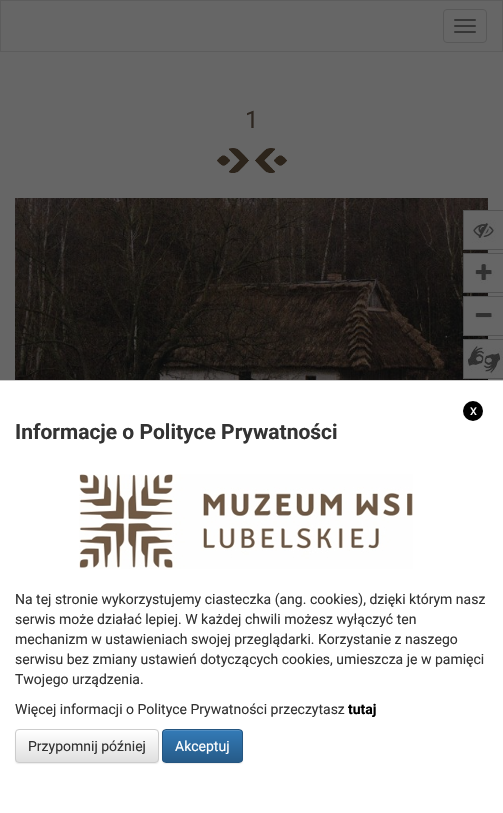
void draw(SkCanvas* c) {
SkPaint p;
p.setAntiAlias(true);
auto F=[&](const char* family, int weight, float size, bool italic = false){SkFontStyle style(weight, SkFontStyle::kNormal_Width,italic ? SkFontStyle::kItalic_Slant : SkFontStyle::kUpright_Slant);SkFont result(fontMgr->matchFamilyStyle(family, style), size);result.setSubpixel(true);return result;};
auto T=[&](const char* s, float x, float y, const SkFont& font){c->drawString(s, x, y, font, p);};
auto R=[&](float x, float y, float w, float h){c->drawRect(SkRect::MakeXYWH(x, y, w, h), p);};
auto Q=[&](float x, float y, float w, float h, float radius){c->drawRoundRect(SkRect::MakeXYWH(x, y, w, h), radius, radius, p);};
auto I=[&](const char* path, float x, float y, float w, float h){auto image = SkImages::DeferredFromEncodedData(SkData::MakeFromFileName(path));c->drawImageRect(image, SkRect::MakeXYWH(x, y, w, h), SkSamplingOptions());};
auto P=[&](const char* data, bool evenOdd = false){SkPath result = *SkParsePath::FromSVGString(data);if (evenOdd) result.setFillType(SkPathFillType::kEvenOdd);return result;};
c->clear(0xff666666);
p.setStroke(true);
p.setStrokeWidth(1);
p.setColor(0xff5c5c5c);
c->drawRect(SkRect::MakeXYWH(.5,.5,502,51),p);
p.setColor(0xff585858);
c->drawRoundRect(SkRect::MakeXYWH(443.5,9.5,43,33),3.5,3.5,p);
p.setStroke(false);
p.setColor(0xff363636);
Q(454,19,22,2,1);
Q(454,25,22,2,1);
Q(454,31,22,2,1);
auto f1 = F("Roboto",400,24);
p.setColor(0xff2d2620);
T("1",245,128,f1);
I("1.png",217,148,70,25);
I("2.png",15,198,473,182);
p.setColor(0xff666666);
R(464,211,24,38);
p.setColor(0xff525252);
R(463,210,40,1);
R(463,249,40,1);
R(463,210,1,40);
I("3.png",472,220,24,23);
p.setColor(0xff666666);
R(464,254,24,38);
p.setColor(0xff525252);
R(463,253,40,1);
R(463,292,40,1);
R(463,253,1,40);
I("4.png",475,262,20,22);
p.setColor(0xff666666);
R(464,297,24,38);
p.setColor(0xff525252);
R(463,296,40,1);
R(463,335,40,1);
R(463,296,1,40);
I("5.png",475,313,20,6);
p.setColor(0xff666666);
R(464,340,1,38);
p.setColor(0xff525252);
R(463,339,40,1);
R(463,378,40,1);
R(463,339,1,40);
I("6.png",465,340,38,38);
p.setColor(0xffffffff);
R(0,381,503,432);
p.setColor(0xffcccccc);
R(0,380,503,1);
p.setColor(0xff000000);
c->drawCircle(473,411,10,p);
auto f2 = F("Roboto",400,14);
p.setColor(0xffffffff);
T("x",470,415,f2);
auto f3 = F("Roboto",700,21);
p.setColor(0xff333333);
T("Informacje o Polityce Prywatności",15,439,f3);
I("7.png",79,474,334,95);
T("Na tej stronie wykorzystujemy ciasteczka (ang. cookies), dzięki którym nasz",15,604,f2);
T("serwis może działać lepiej. W każdej chwili możesz wyłączyć ten",15,624,f2);
T("mechanizm w ustawieniach swojej przeglądarki. Korzystanie z naszego",15,644,f2);
T("serwisu bez zmiany ustawień dotyczących cookies, umieszcza je w pamięci",15,664,f2);
T("Twojego urządzenia.",15,684,f2);
T("Więcej informacji o Polityce Prywatności przeczytasz",15,714,f2);
auto f4 = F("Roboto",700,14);
p.setColor(0xff000000);
T("tutaj",348,714,f4);
p.setColor(0x12000000);
p.setMaskFilter(SkMaskFilter::MakeBlur(kNormal_SkBlurStyle, .5));
c->drawRoundRect(SkRect::MakeXYWH(15,730,144,34),4,4,p);
p.setMaskFilter(nullptr);
c->save();
c->clipPath(P("M19 729h136c2 0 4 2 4 4v26c0 2-2 4-4 4h-136c-2 0-4-2-4-4v-26c0-2 2-4 4-4z"),true);
{
const SkColor colors[] = {0xffffffff,0xffe0e0e0};
const float stops[] = {0,1};
const SkPoint ends[] = {{87,730}, {87,762}};
p.setShader(SkGradientShader::MakeLinear(ends, colors, stops, 2, SkTileMode::kClamp));
p.setAlpha(255);
}
R(15,730,144,32);
c->restore();
p.setStroke(true);
p.setShader(nullptr);
p.setColor(0xffcccccc);
c->drawRoundRect(SkRect::MakeXYWH(15.5,729.5,143,33),3.5,3.5,p);
p.setStroke(false);
p.setColor(0xff333333);
T("Przypomnij później",28,751,f2);
p.setColor(0x12000000);
p.setMaskFilter(SkMaskFilter::MakeBlur(kNormal_SkBlurStyle, .5));
c->drawRoundRect(SkRect::MakeXYWH(162,730,81,34),4,4,p);
p.setMaskFilter(nullptr);
c->save();
c->clipPath(P("M166 729h73c2 0 4 2 4 4v26c0 2-2 4-4 4h-73c-2 0-4-2-4-4v-26c0-2 2-4 4-4z"),true);
{
const SkColor colors[] = {0xff337ab7,0xff265a88};
const float stops[] = {0,1};
const SkPoint ends[] = {{203,730}, {203,762}};
p.setShader(SkGradientShader::MakeLinear(ends, colors, stops, 2, SkTileMode::kClamp));
p.setAlpha(255);
}
R(162,730,81,32);
c->restore();
p.setShader(nullptr);
p.setColor(0xff528ec1);
c->drawPath(P("M166 731h73c2 0 3 1 3 3c0-7-11-4-15-4h-49c-4 0-15-3-15 4c0-2 1-3 3-3z"),p);
p.setStroke(true);
p.setColor(0xff245580);
c->drawRoundRect(SkRect::MakeXYWH(162.5,729.5,80,33),3.5,3.5,p);
p.setStroke(false);
p.setColor(0xffffffff);
T("Akceptuj",175,751,f2);
}
